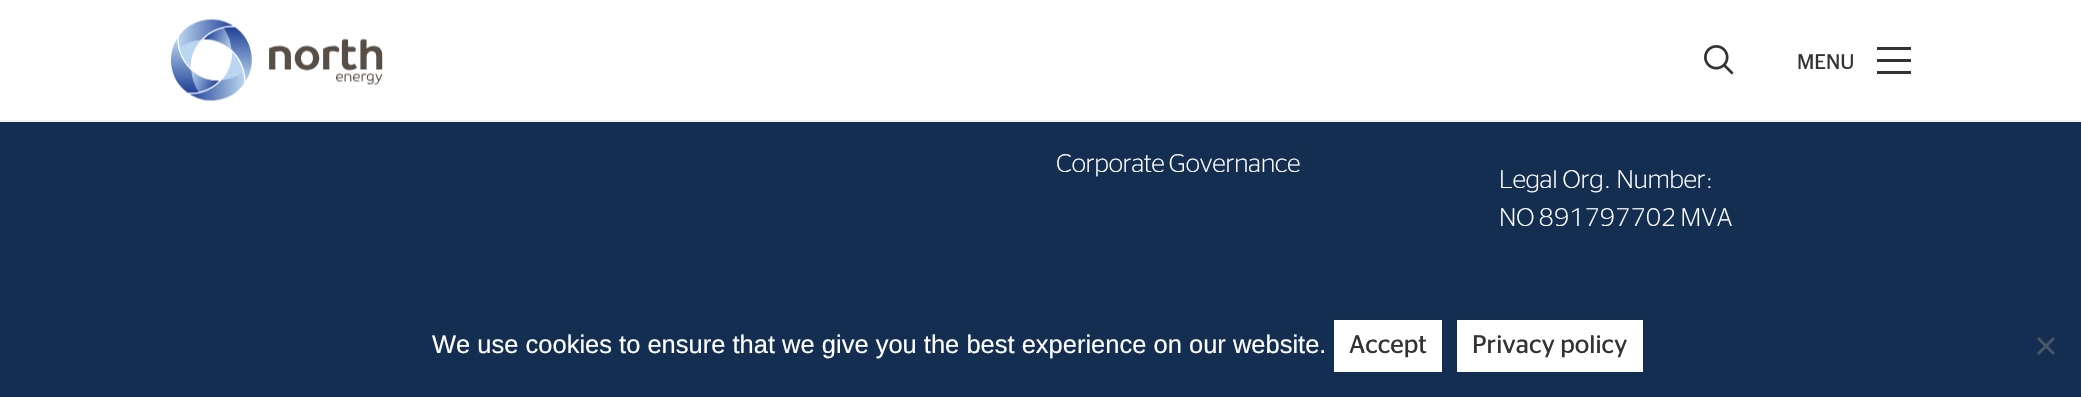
void draw(SkCanvas* c) {
SkPaint p;
p.setAntiAlias(true);
auto F=[&](const char* family, int weight, float size, bool italic = false){SkFontStyle style(weight, SkFontStyle::kNormal_Width,italic ? SkFontStyle::kItalic_Slant : SkFontStyle::kUpright_Slant);SkFont result(fontMgr->matchFamilyStyle(family, style), size);result.setSubpixel(true);return result;};
auto T=[&](const char* s, float x, float y, const SkFont& font){c->drawString(s, x, y, font, p);};
auto L=[&](const char* s, float x, float y, const SkFont& font, const SkPaint& ink, float letter, float word){std::vector<SkGlyphID> glyphs(font.countText(s, strlen(s), SkTextEncoding::kUTF8));std::vector<float> xs(glyphs.size());font.textToGlyphs(s, strlen(s), SkTextEncoding::kUTF8, glyphs);font.getXPos(glyphs, xs, x);float extra = 0;for (size_t i = 0; i < glyphs.size(); i++) {xs[i] += extra;extra += letter + word * (glyphs[i] == font.unicharToGlyph(' '));}c->drawTextBlob(SkTextBlob::MakeFromPosHGlyphs(glyphs, xs, y, font), 0, 0, ink);};
auto R=[&](float x, float y, float w, float h){c->drawRect(SkRect::MakeXYWH(x, y, w, h), p);};
auto I=[&](const char* path, float x, float y, float w, float h){auto image = SkImages::DeferredFromEncodedData(SkData::MakeFromFileName(path));c->drawImageRect(image, SkRect::MakeXYWH(x, y, w, h), SkSamplingOptions());};
auto P=[&](const char* data, bool evenOdd = false){SkPath result = *SkParsePath::FromSVGString(data);if (evenOdd) result.setFillType(SkPathFillType::kEvenOdd);return result;};
c->clear(0xff132e50);
p.setColor(0xffffffff);
R(0,0,2081,120);
p.setColor(0xfff1f1f1);
R(0,120,2081,2);
I("1.png",171,19,212,82);
I("2.png",1704,45,30,30);
auto f1 = F("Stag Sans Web",400,21);
p.setColor(0xff333333);
T("MENU",1797,69,f1);
R(1877,59,34,3);
R(1877,47,34,3);
R(1877,71,34,3);
auto f2 = F("Stag Sans Web",300,25.5);
p.setColor(0xffffffff);
L("Corporate Governance",1056,172,f2,p,0,-2);
L("Legal Org. Number:",1499,188,f2,p,0,-1);
L("NO 891797702 MVA",1499,226,f2,p,0,-2);
auto f3 = F("Liberation Sans",400,25.5);
T("We use cookies to ensure that we give you the best experience on our website.",432,353,f3);
R(1334,320,108,52);
auto f4 = F("Stag Sans Web",400,25.5);
p.setColor(0xff333333);
T("Accept",1349,353,f4);
p.setColor(0xffffffff);
R(1457,320,186,52);
p.setColor(0xff333333);
T("Privacy policy",1472,353,f4);
p.setColor(0xff4a5768);
c->drawPath(P("M2053 337l2 2l-16 16l-2-2z"),p);
c->drawPath(P("M2037 339l2-2l16 16l-2 2z"),p);
}
